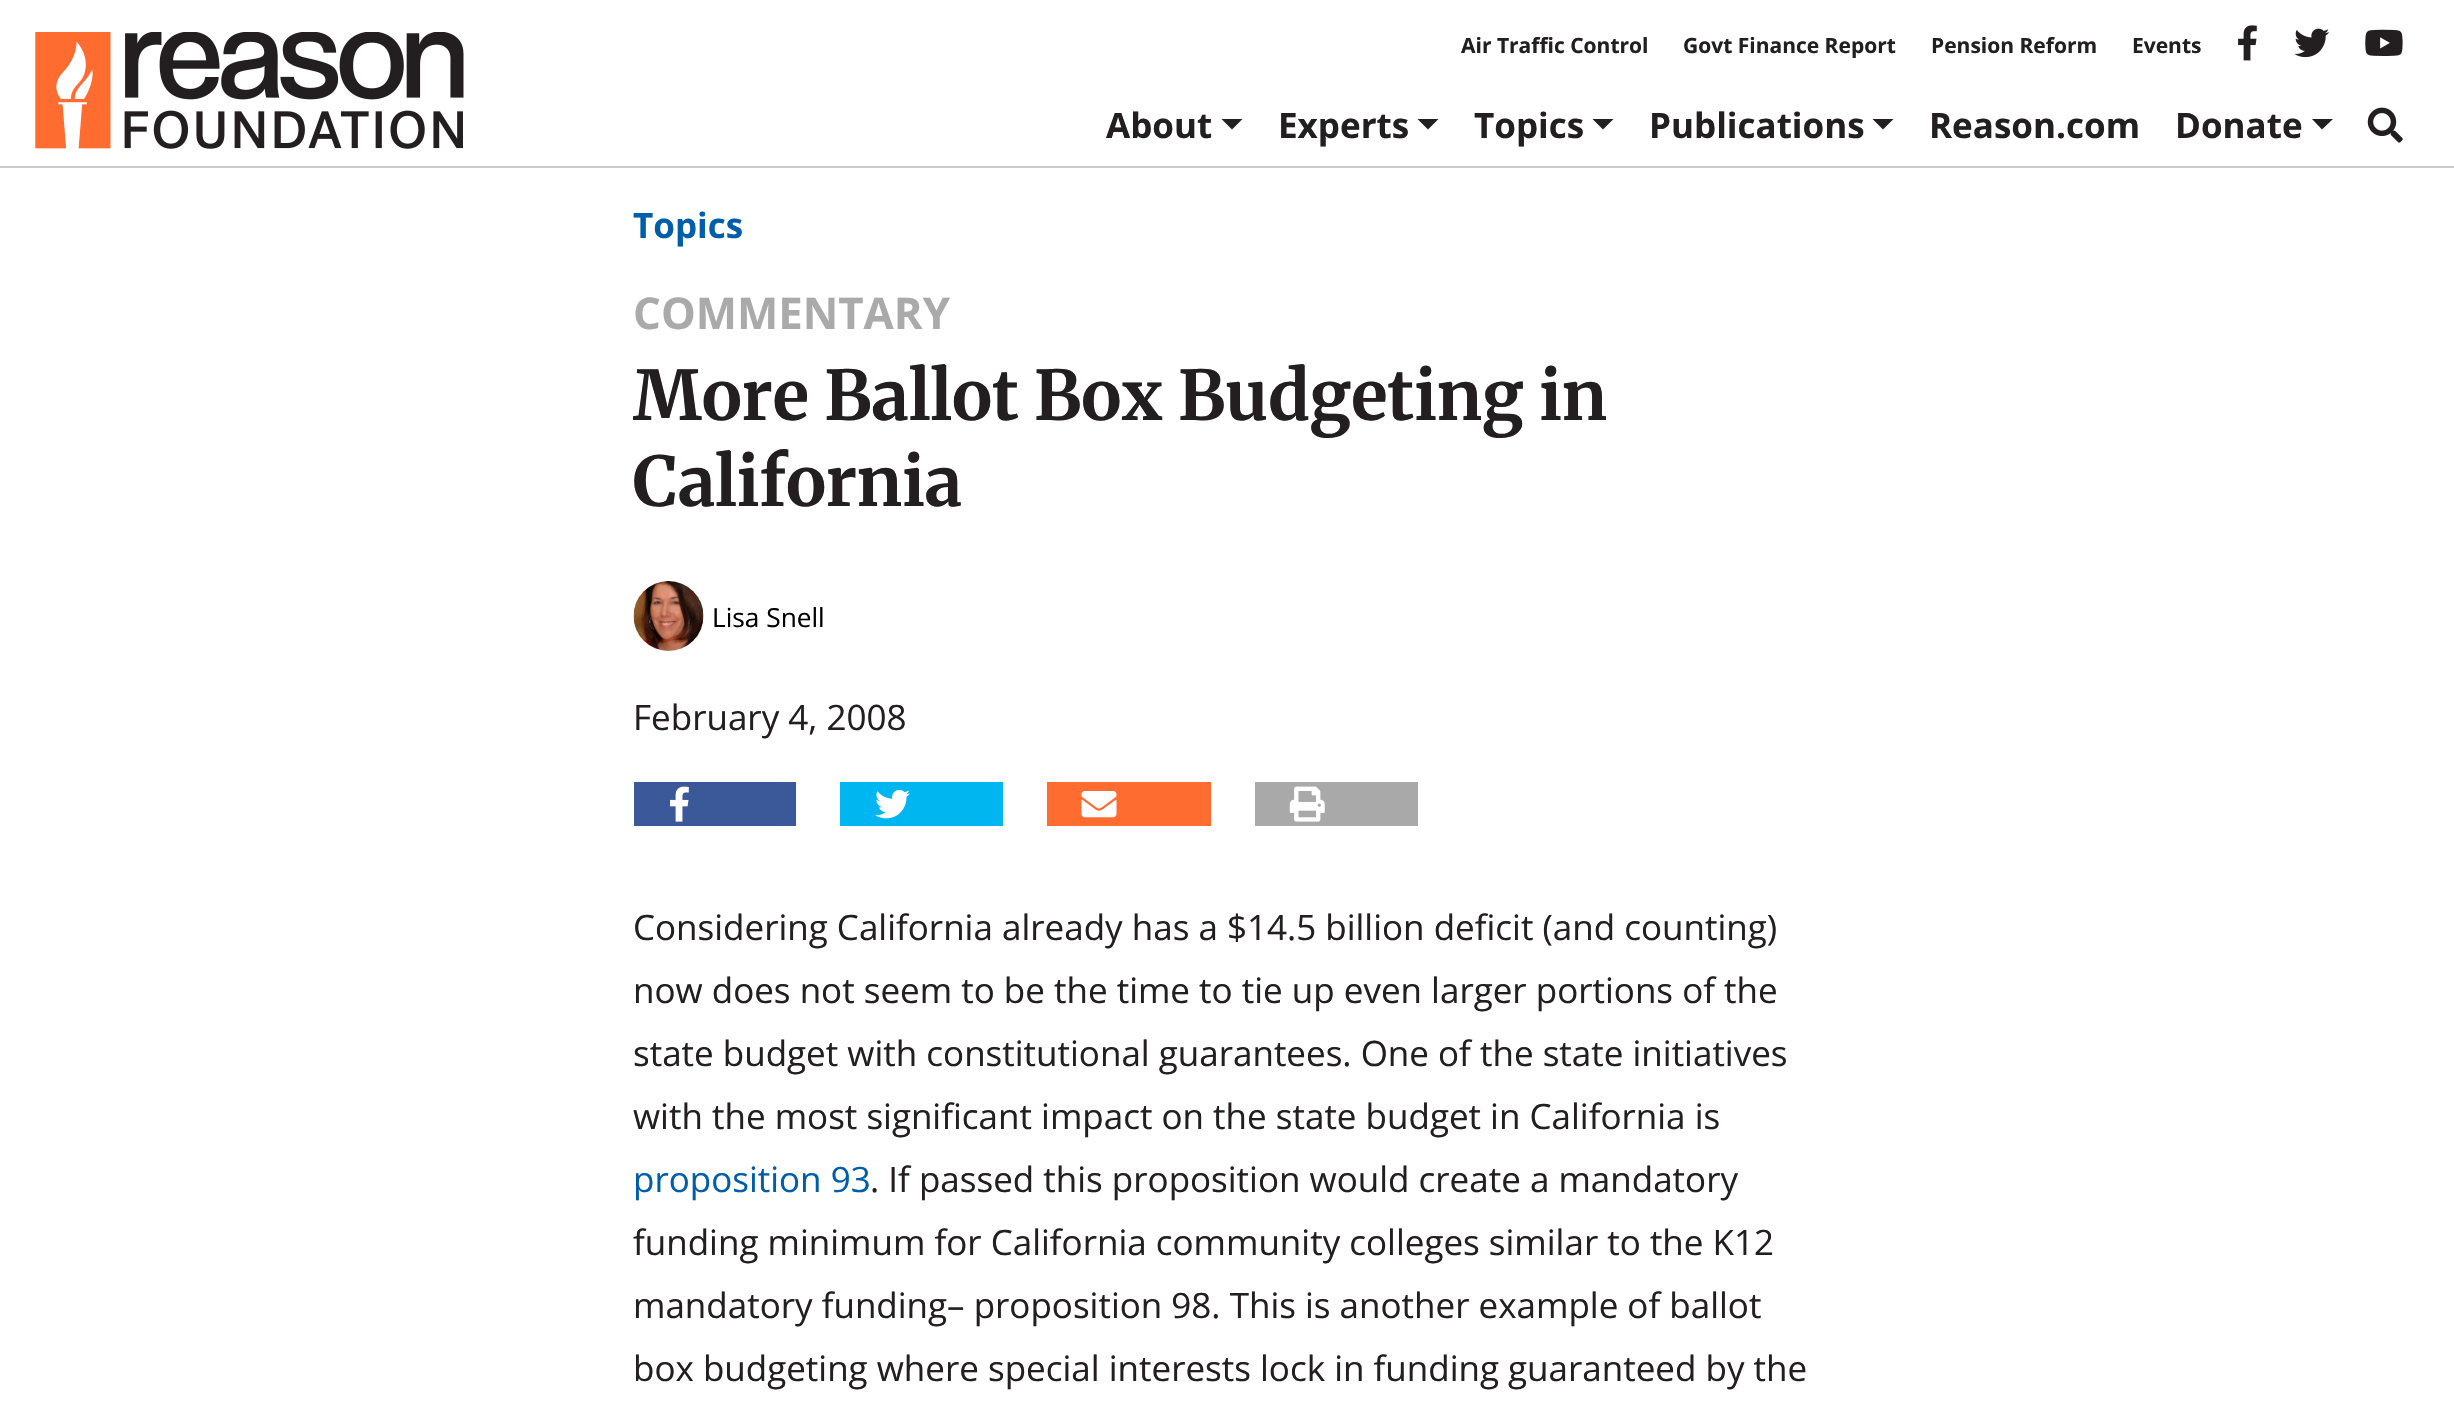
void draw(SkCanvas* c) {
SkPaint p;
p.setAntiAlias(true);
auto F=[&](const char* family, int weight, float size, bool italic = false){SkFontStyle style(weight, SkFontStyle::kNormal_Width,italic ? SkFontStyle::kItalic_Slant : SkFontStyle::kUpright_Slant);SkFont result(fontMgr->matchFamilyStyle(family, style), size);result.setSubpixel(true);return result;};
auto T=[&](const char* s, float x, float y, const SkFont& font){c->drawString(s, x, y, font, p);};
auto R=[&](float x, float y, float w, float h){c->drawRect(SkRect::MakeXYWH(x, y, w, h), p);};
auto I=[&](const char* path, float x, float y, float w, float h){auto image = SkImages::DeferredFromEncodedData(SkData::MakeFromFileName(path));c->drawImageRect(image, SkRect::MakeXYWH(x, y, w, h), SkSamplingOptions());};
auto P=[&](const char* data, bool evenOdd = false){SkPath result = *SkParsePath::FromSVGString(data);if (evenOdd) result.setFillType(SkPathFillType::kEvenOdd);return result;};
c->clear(0xffffffff);
auto f1 = F("Open Sans",700,21);
p.setColor(0xff231f20);
T("Air Traffic Control",1461,53,f1);
T("Govt Finance Report",1683,53,f1);
T("Pension Reform",1931,53,f1);
T("Events",2132,53,f1);
I("1.png",2238,25,19,36);
I("2.png",2294,28,36,30);
I("3.png",2365,29,38,27);
p.setColor(0xffcccccc);
R(0,166,2454,2);
I("4.png",35,32,429,117);
auto f2 = F("Open Sans",700,35);
p.setColor(0xff231f20);
T("About",1106,138,f2);
c->drawPath(P("M1221.5 119h21l-10.5 10.5z"),p);
T("Experts",1278,138,f2);
c->drawPath(P("M1417.5 119h21l-10.5 10.5z"),p);
T("Topics",1474,138,f2);
c->drawPath(P("M1592.5 119h21l-10.5 10.5z"),p);
T("Publications",1649,138,f2);
c->drawPath(P("M1872.5 119h21l-10.5 10.5z"),p);
T("Reason.com",1929,138,f2);
T("Donate",2175,138,f2);
c->drawPath(P("M2312 119h21l-11 10.5z"),p);
I("5.png",2367,107,36,36);
p.setColor(0xff005daa);
T("Topics",633,238,f2);
auto f3 = F("Open Sans",700,43.75);
p.setColor(0xffaaaaaa);
T("COMMENTARY",633,329,f3);
auto f4 = F("Merriweather",700,68.4);
p.setColor(0xff231f20);
T("More Ballot Box Budgeting in",633,420,f4);
T("California",633,506,f4);
I("6.png",633,581,71,70);
auto f5 = F("Open Sans",400,26.25);
p.setColor(0xff000000);
T("Lisa Snell",712,627,f5);
auto f6 = F("Open Sans",400,35);
p.setColor(0xff231f20);
T("February 4, 2008",633,730,f6);
p.setColor(0xff3b5998);
R(634,782,162,44);
I("7.png",670,786,19,36);
p.setColor(0xff00b6f1);
R(840,782,163,44);
I("8.png",875,789,35,30);
p.setColor(0xffff6c2f);
R(1047,782,164,44);
I("9.png",1081,791,36,27);
p.setColor(0xffa9a9a9);
R(1255,782,163,44);
I("10.png",1289,786,36,36);
p.setColor(0xff231f20);
T("Considering California already has a $14.5 billion deficit (and counting)",633,940,f6);
T("now does not seem to be the time to tie up even larger portions of the",633,1003,f6);
T("state budget with constitutional guarantees. One of the state initiatives",633,1066,f6);
T("with the most significant impact on the state budget in California is",633,1129,f6);
p.setColor(0xff005daa);
T("proposition 93",633,1192,f6);
p.setColor(0xff231f20);
T(". If passed this proposition would create a mandatory",870,1192,f6);
T("funding minimum for California community colleges similar to the K12",633,1255,f6);
T("mandatory funding– proposition 98. This is another example of ballot",633,1318,f6);
T("box budgeting where special interests lock in funding guaranteed by the",633,1381,f6);
}
